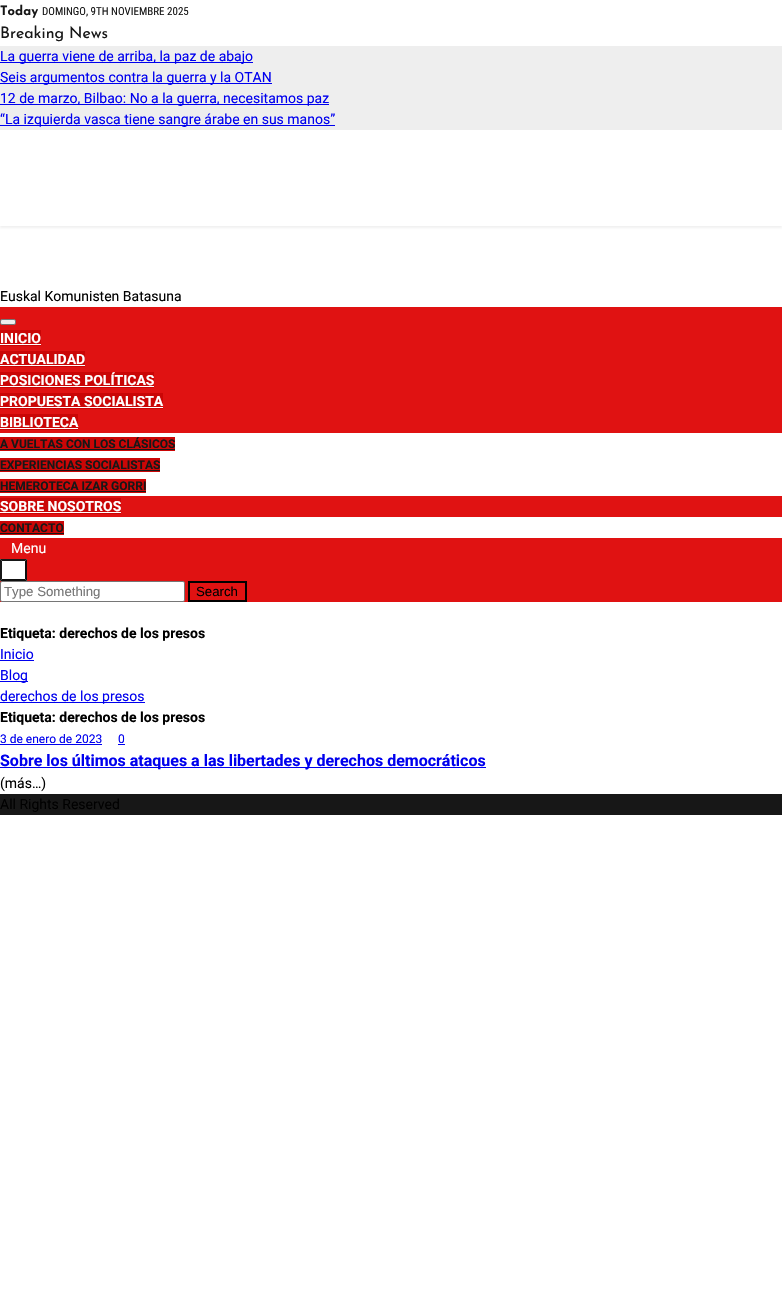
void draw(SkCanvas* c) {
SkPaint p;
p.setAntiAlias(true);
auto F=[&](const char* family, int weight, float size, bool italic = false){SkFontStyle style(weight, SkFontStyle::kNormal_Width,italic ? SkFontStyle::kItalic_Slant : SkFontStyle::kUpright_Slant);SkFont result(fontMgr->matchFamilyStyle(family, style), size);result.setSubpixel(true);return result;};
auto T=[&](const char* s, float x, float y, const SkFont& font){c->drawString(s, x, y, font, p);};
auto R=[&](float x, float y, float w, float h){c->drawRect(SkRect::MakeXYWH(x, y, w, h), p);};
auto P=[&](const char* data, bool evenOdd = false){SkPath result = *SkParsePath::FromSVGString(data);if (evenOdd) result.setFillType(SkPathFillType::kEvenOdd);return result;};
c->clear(0xffffffff);
c->save();
c->clipRect(SkRect::MakeXYWH(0,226,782,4));
p.setColor(0xfff1f1f1);
p.setMaskFilter(SkMaskFilter::MakeBlur(kNormal_SkBlurStyle, 1));
c->drawRect(SkRect::MakeXYWH(0,2,782,226),p);
p.setMaskFilter(nullptr);
c->restore();
auto f1 = F("Josefin Sans",700,13);
p.setColor(0xff171717);
T("Today",0,15,f1);
auto f2 = F("Roboto Condensed",400,11);
T("DOMINGO, 9TH NOVIEMBRE 2025",42,15,f2);
p.setColor(0xffeeeeee);
R(0,46,782,84);
auto f3 = F("Josefin Sans",400,16);
p.setColor(0xff171717);
T("Breaking News",0,38,f3);
p.setColor(0xff0000ee);
R(0,62,253,1);
auto f4 = F("Roboto",400,14);
T("La guerra viene de arriba, la paz de abajo",0,61,f4);
R(0,83,272,1);
T("Seis argumentos contra la guerra y la OTAN",0,82,f4);
R(0,104,329,1);
T("12 de marzo, Bilbao: No a la guerra, necesitamos paz",0,103,f4);
R(0,125,335,1);
T("“La izquierda vasca tiene sangre árabe en sus manos”",0,124,f4);
p.setColor(0xff000000);
T("Euskal Komunisten Batasuna",0,301,f4);
p.setColor(0xffe01212);
R(0,307,782,295);
p.setColor(0xffefefef);
c->drawRoundRect(SkRect::MakeXYWH(.5,319.5,15,5),1.5,1.5,p);
p.setStroke(true);
p.setStrokeWidth(1);
p.setColor(0xff767676);
c->drawRoundRect(SkRect::MakeXYWH(.5,319.5,15,5),1.5,1.5,p);
p.setStroke(false);
p.setColor(0xffca0606);
R(0,330,41,16);
auto f5 = F("Roboto",700,14);
p.setColor(0xffffffff);
T("INICIO",0,343,f5);
R(0,344,41,1);
p.setColor(0xffca0606);
R(0,351,85,16);
p.setColor(0xffffffff);
T("ACTUALIDAD",0,364,f5);
R(0,365,85,1);
p.setColor(0xffca0606);
R(0,372,154,16);
p.setColor(0xffffffff);
T("POSICIONES POLÍTICAS",0,385,f5);
R(0,386,154,1);
p.setColor(0xffca0606);
R(0,393,163,16);
p.setColor(0xffffffff);
T("PROPUESTA SOCIALISTA",0,406,f5);
R(0,407,163,1);
p.setColor(0xffca0606);
R(0,414,78,16);
p.setColor(0xffffffff);
T("BIBLIOTECA",0,427,f5);
R(0,428,78,1);
R(0,433,782,63);
p.setColor(0xffca0606);
R(0,437,175,14);
auto f6 = F("Roboto",700,12);
p.setColor(0xff171717);
T("A VUELTAS CON LOS CLÁSICOS",0,448,f6);
R(0,449,175,1);
p.setColor(0xffca0606);
R(0,458,160,14);
p.setColor(0xff171717);
T("EXPERIENCIAS SOCIALISTAS",0,469,f6);
R(0,470,160,1);
p.setColor(0xffca0606);
R(0,479,146,14);
p.setColor(0xff171717);
T("HEMEROTECA IZAR GORRI",0,490,f6);
R(0,491,146,1);
p.setColor(0xffca0606);
R(0,498,121,16);
p.setColor(0xffffffff);
T("SOBRE NOSOTROS",0,511,f5);
R(0,512,121,1);
R(0,517,782,21);
p.setColor(0xffca0606);
R(0,521,64,14);
p.setColor(0xff171717);
T("CONTACTO",0,532,f6);
R(0,533,64,1);
p.setColor(0xffffffff);
T("Menu",11,553,f4);
R(0,559,27,22);
p.setColor(0xff171717);
c->drawPath(P("M0 559h27l-2 2h-23z"),p);
p.setColor(0xff0f0f0f);
c->drawPath(P("M27 559v22l-2-2v-18z"),p);
c->drawPath(P("M27 581h-27l2-2h23z"),p);
p.setColor(0xff171717);
c->drawPath(P("M0 581v-22l2 2v18z"),p);
p.setColor(0xffffffff);
c->drawRoundRect(SkRect::MakeXYWH(.5,581.5,184,20),1.5,1.5,p);
p.setStroke(true);
p.setColor(0xff767676);
c->drawRoundRect(SkRect::MakeXYWH(.5,581.5,184,20),1.5,1.5,p);
auto f7 = F("Liberation Sans",400,13.25);
p.setStroke(false);
p.setColor(0xff757575);
T("Type Something",4,596,f7);
p.setStroke(true);
p.setStrokeWidth(2);
p.setColor(0xff000000);
c->drawRect(SkRect::MakeXYWH(189,582,57,19),p);
p.setStroke(false);
T("Search",196,596,f7);
T("Etiqueta: derechos de los presos",0,638,f5);
p.setColor(0xff0000ee);
T("Inicio",0,659,f4);
R(0,660,34,1);
R(0,681,28,1);
T("Blog",0,680,f4);
R(0,702,145,1);
T("derechos de los presos",0,701,f4);
p.setColor(0xff000000);
T("Etiqueta: derechos de los presos",0,722,f5);
auto f8 = F("Roboto",400,12);
p.setColor(0xff0000ee);
T("3 de enero de 2023",0,743,f8);
R(0,744,102,1);
T("0",118,743,f8);
R(118,744,7,1);
R(0,767,486,1);
auto f9 = F("Roboto",700,16);
T("Sobre los últimos ataques a las libertades y derechos democráticos",0,766,f9);
p.setColor(0xff000000);
T("(más…)",0,788,f4);
p.setColor(0xff171717);
R(0,794,782,21);
p.setColor(0xff000000);
T("All Rights Reserved",0,809,f4);
}
